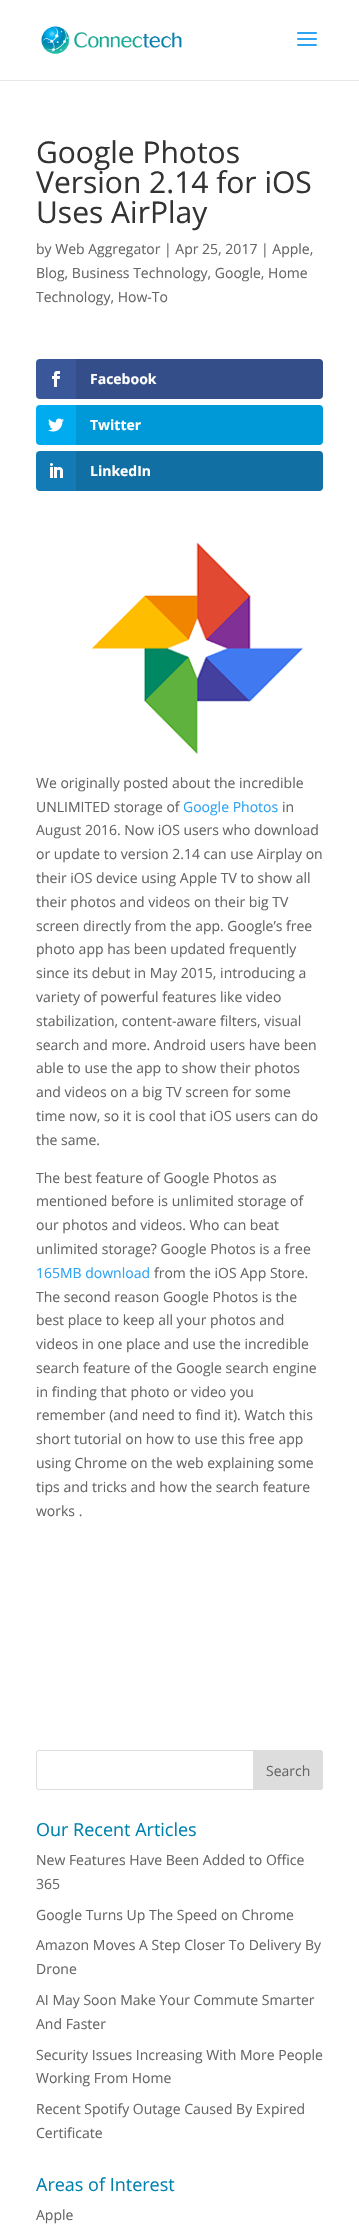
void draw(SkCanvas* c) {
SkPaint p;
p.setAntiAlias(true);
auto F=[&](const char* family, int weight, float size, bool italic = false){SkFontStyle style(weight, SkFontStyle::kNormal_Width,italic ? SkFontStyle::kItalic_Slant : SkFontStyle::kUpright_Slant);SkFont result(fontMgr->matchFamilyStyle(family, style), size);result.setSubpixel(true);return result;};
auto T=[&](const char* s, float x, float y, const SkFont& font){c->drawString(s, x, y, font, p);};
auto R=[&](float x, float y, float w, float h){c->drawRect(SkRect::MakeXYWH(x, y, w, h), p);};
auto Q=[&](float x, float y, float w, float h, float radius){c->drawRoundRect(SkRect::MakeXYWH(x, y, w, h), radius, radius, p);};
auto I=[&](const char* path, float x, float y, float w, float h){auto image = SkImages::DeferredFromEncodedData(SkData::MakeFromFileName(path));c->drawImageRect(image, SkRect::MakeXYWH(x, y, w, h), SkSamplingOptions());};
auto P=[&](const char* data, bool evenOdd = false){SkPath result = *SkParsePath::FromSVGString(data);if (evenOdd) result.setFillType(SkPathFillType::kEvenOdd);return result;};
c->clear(0xffffffff);
p.setColor(0xffe6e6e6);
R(0,80,359,1);
I("1.png",41,26,141,28);
I("2.png",297,32,20,14);
auto f1 = F("Open Sans",400,30);
p.setColor(0xff333333);
T("Google Photos",36,163,f1);
T("Version 2.14 for iOS",36,193,f1);
T("Uses AirPlay",36,223,f1);
auto f2 = F("Open Sans",400,14);
p.setColor(0xff666666);
T("by Web Aggregator | Apr 25, 2017 | Apple,",36,254,f2);
T("Blog, Business Technology, Google, Home",36,278,f2);
T("Technology, How-To",36,302,f2);
p.setColor(0xff3a579a);
Q(36,359,287,40,4);
I("3.png",52,371,8,16);
p.setColor(0x1a000000);
c->drawPath(P("M76 359h243c2 0 4 2 4 4v32c0 2-2 4-4 4h-243z"),p);
auto f3 = F("Open Sans",700,14);
p.setColor(0xffffffff);
T("Facebook",90,384,f3);
p.setColor(0xff00abf0);
Q(36,405,287,40,4);
I("4.png",48,418,16,14);
p.setColor(0x1a000000);
c->drawPath(P("M76 405h243c2 0 4 2 4 4v32c0 2-2 4-4 4h-243z"),p);
p.setColor(0xffffffff);
T("Twitter",90,430,f3);
p.setColor(0xff127bb6);
Q(36,451,287,40,4);
I("5.png",50,463,13,15);
p.setColor(0x1a000000);
c->drawPath(P("M76 451h243c2 0 4 2 4 4v32c0 2-2 4-4 4h-243z"),p);
p.setColor(0xffffffff);
T("LinkedIn",90,476,f3);
I("6.png",91,542,212,212);
p.setColor(0xff666666);
T("We originally posted about the incredible",36,788,f2);
T("UNLIMITED storage of",36,812,f2);
p.setColor(0xff2ea3f2);
T("Google Photos",183,812,f2);
p.setColor(0xff666666);
T("in",282,812,f2);
T("August 2016. Now iOS users who download",36,835,f2);
T("or update to version 2.14 can use Airplay on",36,859,f2);
T("their iOS device using Apple TV to show all",36,883,f2);
T("their photos and videos on their big TV",36,907,f2);
T("screen directly from the app. Google’s free",36,931,f2);
T("photo app has been updated frequently",36,954,f2);
T("since its debut in May 2015, introducing a",36,978,f2);
T("variety of powerful features like video",36,1002,f2);
T("stabilization, content-aware filters, visual",36,1026,f2);
T("search and more. Android users have been",36,1050,f2);
T("able to use the app to show their photos",36,1073,f2);
T("and videos on a big TV screen for some",36,1097,f2);
T("time now, so it is cool that iOS users can do",36,1121,f2);
T("the same.",36,1145,f2);
T("The best feature of Google Photos as",36,1183,f2);
T("mentioned before is unlimited storage of",36,1206,f2);
T("our photos and videos. Who can beat",36,1230,f2);
T("unlimited storage? Google Photos is a free",36,1254,f2);
p.setColor(0xff2ea3f2);
T("165MB download",36,1278,f2);
p.setColor(0xff666666);
T("from the iOS App Store.",154,1278,f2);
T("The second reason Google Photos is the",36,1302,f2);
T("best place to keep all your photos and",36,1325,f2);
T("videos in one place and use the incredible",36,1349,f2);
T("search feature of the Google search engine",36,1373,f2);
T("in finding that photo or video you",36,1397,f2);
T("remember (and need to find it). Watch this",36,1420,f2);
T("short tutorial on how to use this free app",36,1444,f2);
T("using Chrome on the web explaining some",36,1468,f2);
T("tips and tricks and how the search feature",36,1492,f2);
T("works .",36,1516,f2);
p.setStroke(true);
p.setStrokeWidth(1);
p.setColor(0xffdddddd);
c->drawRoundRect(SkRect::MakeXYWH(36.5,1750.5,286,39),2.5,2.5,p);
p.setStroke(false);
c->drawPath(P("M253.5 1750.5h66.5c1.5 0 2.5 1 2.5 2.5v34c0 1.5-1 2.5-2.5 2.5h-66.5z"),p);
p.setStroke(true);
c->drawPath(P("M253.5 1750.5h66.5c1.5 0 2.5 1 2.5 2.5v34c0 1.5-1 2.5-2.5 2.5h-66.5z"),p);
p.setStroke(false);
p.setColor(0xff666666);
T("Search",266,1776,f2);
auto f4 = F("Open Sans",400,18);
p.setColor(0xff0081ae);
T("Our Recent Articles",36,1836,f4);
p.setColor(0xff666666);
T("New Features Have Been Added to Office",36,1865,f2);
T("365",36,1889,f2);
T("Google Turns Up The Speed on Chrome",36,1920,f2);
T("Amazon Moves A Step Closer To Delivery By",36,1950,f2);
T("Drone",36,1974,f2);
T("AI May Soon Make Your Commute Smarter",36,2005,f2);
T("And Faster",36,2029,f2);
T("Security Issues Increasing With More People",36,2060,f2);
T("Working From Home",36,2083,f2);
T("Recent Spotify Outage Caused By Expired",36,2114,f2);
T("Certificate",36,2138,f2);
p.setColor(0xff0081ae);
T("Areas of Interest",36,2191,f4);
p.setColor(0xff666666);
T("Apple",36,2220,f2);
}
